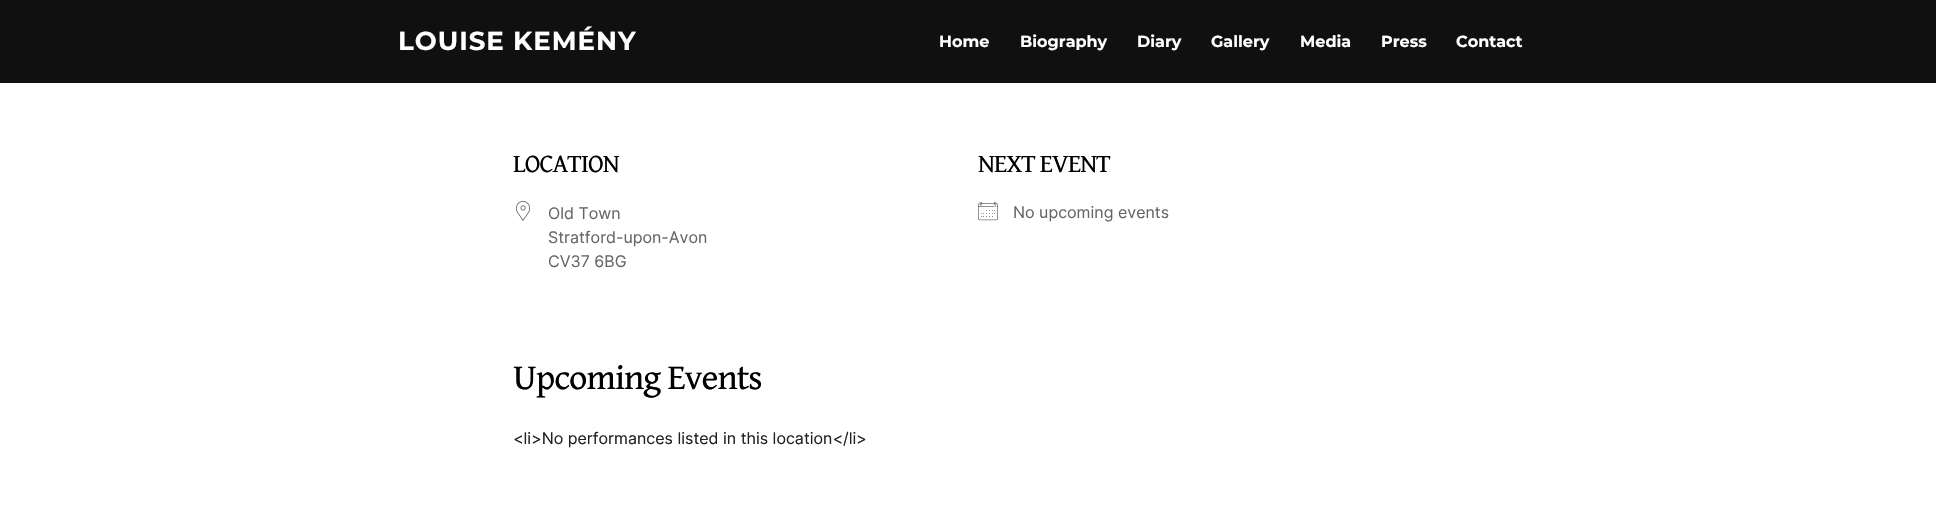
void draw(SkCanvas* c) {
SkPaint p;
p.setAntiAlias(true);
auto F=[&](const char* family, int weight, float size, bool italic = false){SkFontStyle style(weight, SkFontStyle::kNormal_Width,italic ? SkFontStyle::kItalic_Slant : SkFontStyle::kUpright_Slant);SkFont result(fontMgr->matchFamilyStyle(family, style), size);result.setSubpixel(true);return result;};
auto T=[&](const char* s, float x, float y, const SkFont& font){c->drawString(s, x, y, font, p);};
auto L=[&](const char* s, float x, float y, const SkFont& font, const SkPaint& ink, float letter, float word){std::vector<SkGlyphID> glyphs(font.countText(s, strlen(s), SkTextEncoding::kUTF8));std::vector<float> xs(glyphs.size());font.textToGlyphs(s, strlen(s), SkTextEncoding::kUTF8, glyphs);font.getXPos(glyphs, xs, x);float extra = 0;for (size_t i = 0; i < glyphs.size(); i++) {xs[i] += extra;extra += letter + word * (glyphs[i] == font.unicharToGlyph(' '));}c->drawTextBlob(SkTextBlob::MakeFromPosHGlyphs(glyphs, xs, y, font), 0, 0, ink);};
auto R=[&](float x, float y, float w, float h){c->drawRect(SkRect::MakeXYWH(x, y, w, h), p);};
auto I=[&](const char* path, float x, float y, float w, float h){auto image = SkImages::DeferredFromEncodedData(SkData::MakeFromFileName(path));c->drawImageRect(image, SkRect::MakeXYWH(x, y, w, h), SkSamplingOptions());};
c->clear(0xffffffff);
p.setColor(0xff101010);
R(0,0,1936,83);
auto f1 = F("Montserrat",100,26);
p.setColor(0xffffffff);
L("LOUISE KEMÉNY",398,50,f1,p,1,0);
auto f2 = F("Montserrat",100,16);
T("Home",939,47,f2);
T("Biography",1020,47,f2);
T("Diary",1137,47,f2);
T("Gallery",1211,47,f2);
T("Media",1300,47,f2);
T("Press",1381,47,f2);
T("Contact",1456,47,f2);
auto f3 = F("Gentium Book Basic",400,26);
p.setColor(0xff000000);
L("LOCATION",513,172,f3,p,-1,0);
I("1.png",516,201,14,20);
auto f4 = F("Inter",400,16);
p.setColor(0xff666666);
T("Old Town",548,219,f4);
T("Stratford-upon-Avon",548,243,f4);
T("CV37 6BG",548,267,f4);
p.setColor(0xff000000);
L("NEXT EVENT",978,172,f3,p,-1,0);
I("2.png",978,201,20,20);
p.setColor(0xff666666);
T("No upcoming events",1013,218,f4);
auto f5 = F("Gentium Book Basic",400,36);
p.setColor(0xff000000);
L("Upcoming Events",513,389,f5,p,-1,0);
p.setColor(0xff212121);
T("<li>No performances listed in this location</li>",513,444,f4);
}
